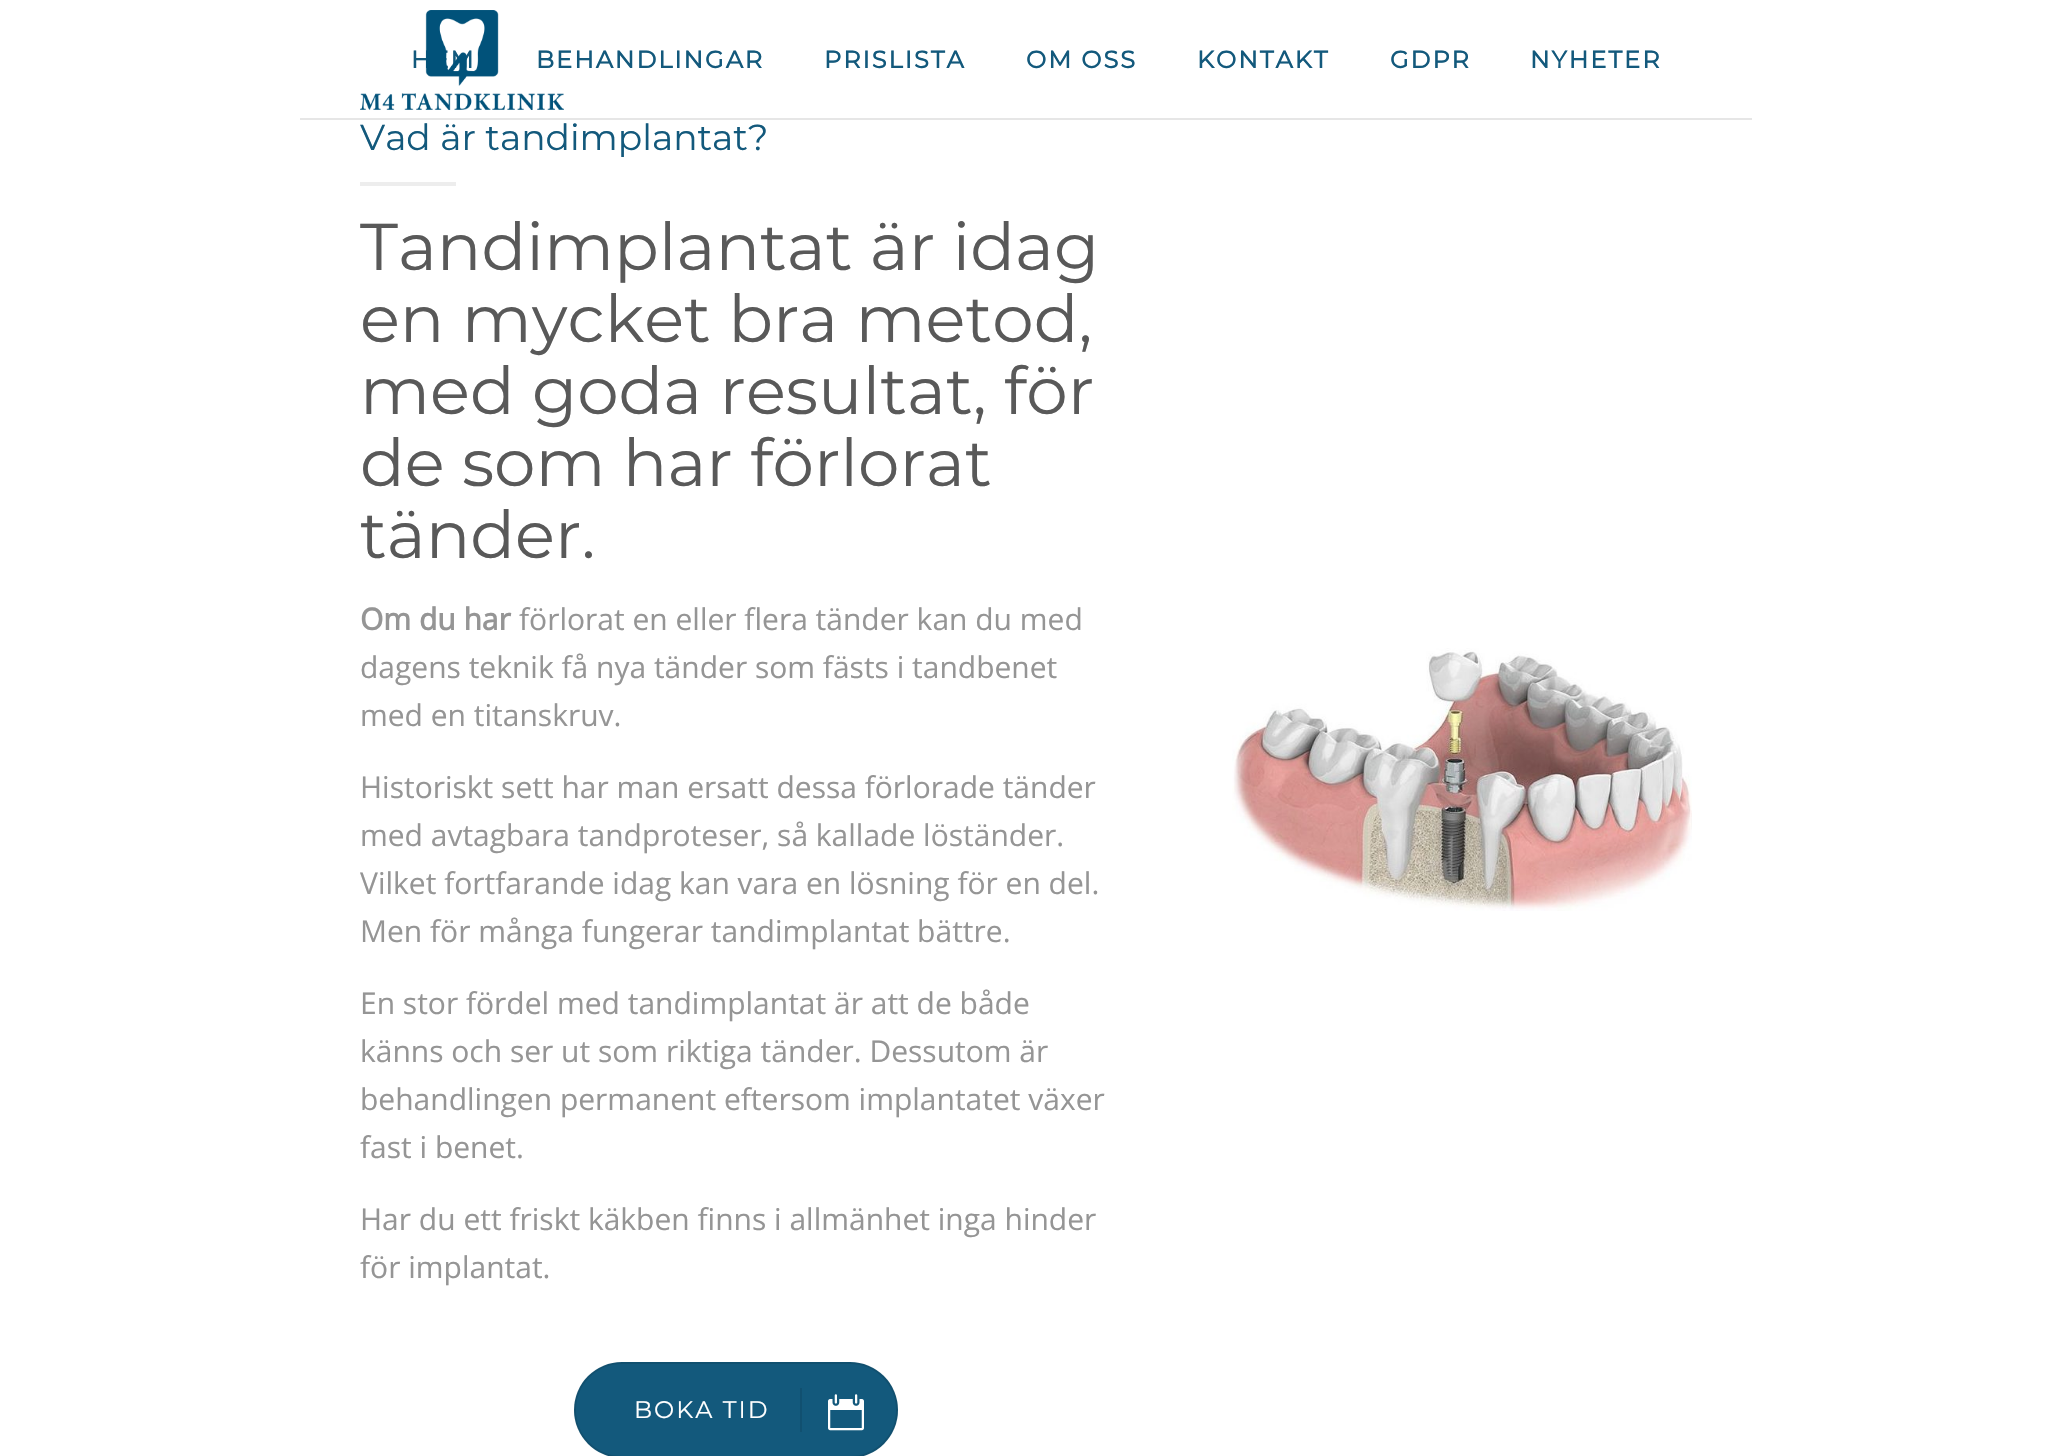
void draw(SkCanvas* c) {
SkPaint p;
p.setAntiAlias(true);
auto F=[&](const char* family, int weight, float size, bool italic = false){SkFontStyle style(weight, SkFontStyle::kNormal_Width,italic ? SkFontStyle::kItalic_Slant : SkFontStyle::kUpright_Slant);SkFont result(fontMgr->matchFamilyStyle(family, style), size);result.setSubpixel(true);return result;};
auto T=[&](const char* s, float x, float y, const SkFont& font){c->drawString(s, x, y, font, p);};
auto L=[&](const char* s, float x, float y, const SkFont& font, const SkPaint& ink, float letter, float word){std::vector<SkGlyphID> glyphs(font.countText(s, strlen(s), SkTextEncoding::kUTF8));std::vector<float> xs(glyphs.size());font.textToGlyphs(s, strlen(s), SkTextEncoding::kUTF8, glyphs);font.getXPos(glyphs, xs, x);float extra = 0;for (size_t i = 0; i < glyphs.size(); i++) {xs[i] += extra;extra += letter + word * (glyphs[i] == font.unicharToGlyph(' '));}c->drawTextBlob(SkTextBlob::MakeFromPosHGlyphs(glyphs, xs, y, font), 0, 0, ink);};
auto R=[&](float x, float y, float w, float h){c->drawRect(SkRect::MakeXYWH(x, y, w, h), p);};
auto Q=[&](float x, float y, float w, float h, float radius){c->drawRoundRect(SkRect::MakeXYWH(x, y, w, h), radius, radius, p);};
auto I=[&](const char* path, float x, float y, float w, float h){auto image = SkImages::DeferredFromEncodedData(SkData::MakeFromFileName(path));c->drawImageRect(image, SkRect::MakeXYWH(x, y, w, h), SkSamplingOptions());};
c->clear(0xffffffff);
p.setColor(0xffe6e6e6);
R(300,118,1452,2);
auto f1 = F("Montserrat",700,24);
p.setColor(0xff13597c);
L("HEM",411,68,f1,p,2,0);
L("BEHANDLINGAR",536,68,f1,p,2,0);
I("1.png",360,10,204,100);
L("PRISLISTA",824,68,f1,p,2,0);
L("OM OSS",1026,68,f1,p,2,0);
L("KONTAKT",1197,68,f1,p,2,0);
L("GDPR",1390,68,f1,p,2,0);
L("NYHETER",1530,68,f1,p,2,0);
auto f2 = F("Montserrat",100,36);
T("Vad är tandimplantat?",360,150,f2);
p.setColor(0xffededed);
R(360,182,96,4);
auto f3 = F("Montserrat",100,66);
p.setColor(0xff595959);
T("Tandimplantat är idag",360,270,f3);
T("en mycket bra metod,",360,342,f3);
T("med goda resultat, för",360,414,f3);
T("de som har förlorat",360,486,f3);
T("tänder.",360,558,f3);
auto f4 = F("Open Sans",700,30);
p.setColor(0xff959595);
T("Om du har",360,630,f4);
auto f5 = F("Open Sans",400,30);
T("förlorat en eller flera tänder kan du med",519,630,f5);
T("dagens teknik få nya tänder som fästs i tandbenet",360,678,f5);
T("med en titanskruv.",360,726,f5);
T("Historiskt sett har man ersatt dessa förlorade tänder",360,798,f5);
T("med avtagbara tandproteser, så kallade löständer.",360,846,f5);
T("Vilket fortfarande idag kan vara en lösning för en del.",360,894,f5);
T("Men för många fungerar tandimplantat bättre.",360,942,f5);
T("En stor fördel med tandimplantat är att de både",360,1014,f5);
T("känns och ser ut som riktiga tänder. Dessutom är",360,1062,f5);
T("behandlingen permanent eftersom implantatet växer",360,1110,f5);
T("fast i benet.",360,1158,f5);
T("Har du ett friskt käkben finns i allmänhet inga hinder",360,1230,f5);
T("för implantat.",360,1278,f5);
p.setColor(0xff13597c);
Q(574,1362,324,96,48);
p.setStroke(true);
p.setStrokeWidth(2);
p.setColor(0x1a000000);
c->drawRoundRect(SkRect::MakeXYWH(575,1363,322,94),47,47,p);
auto f6 = F("Montserrat",100,24);
p.setStroke(false);
p.setColor(0xffffffff);
L("BOKA TID",634,1418,f6,p,2,0);
p.setColor(0xff115070);
R(800,1388,2,44);
I("2.png",828,1394,36,37);
I("3.png",1232,648,460,263);
}
